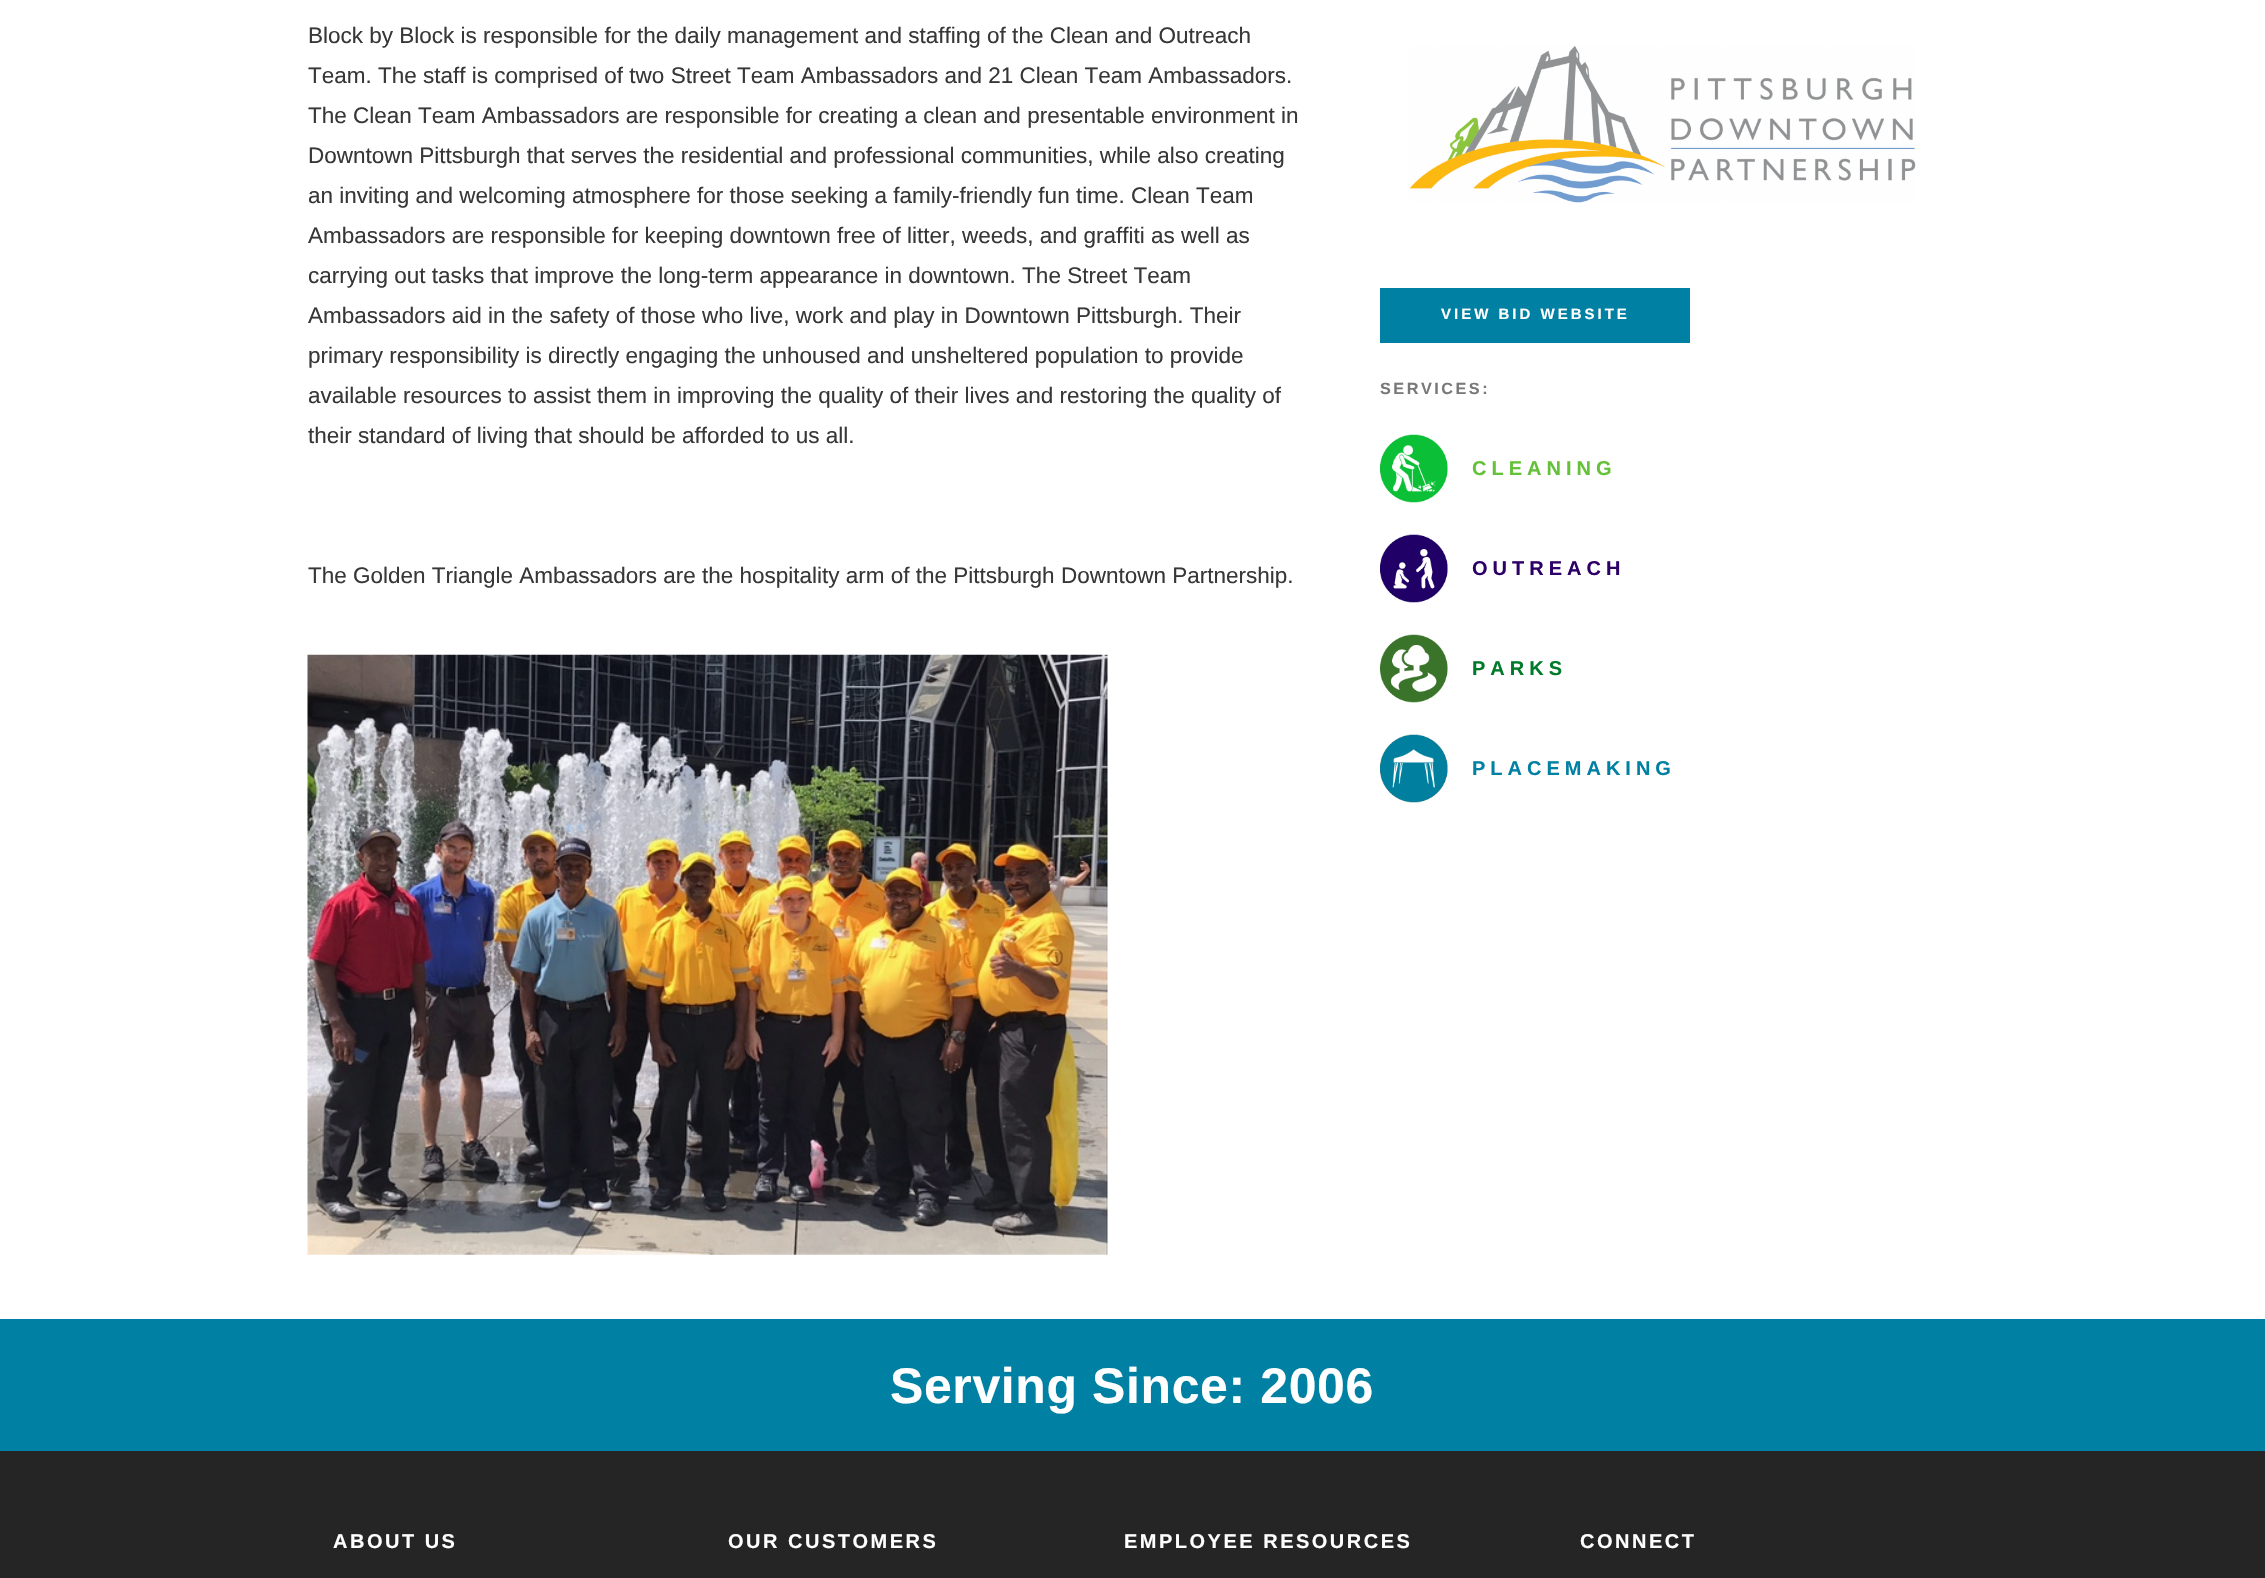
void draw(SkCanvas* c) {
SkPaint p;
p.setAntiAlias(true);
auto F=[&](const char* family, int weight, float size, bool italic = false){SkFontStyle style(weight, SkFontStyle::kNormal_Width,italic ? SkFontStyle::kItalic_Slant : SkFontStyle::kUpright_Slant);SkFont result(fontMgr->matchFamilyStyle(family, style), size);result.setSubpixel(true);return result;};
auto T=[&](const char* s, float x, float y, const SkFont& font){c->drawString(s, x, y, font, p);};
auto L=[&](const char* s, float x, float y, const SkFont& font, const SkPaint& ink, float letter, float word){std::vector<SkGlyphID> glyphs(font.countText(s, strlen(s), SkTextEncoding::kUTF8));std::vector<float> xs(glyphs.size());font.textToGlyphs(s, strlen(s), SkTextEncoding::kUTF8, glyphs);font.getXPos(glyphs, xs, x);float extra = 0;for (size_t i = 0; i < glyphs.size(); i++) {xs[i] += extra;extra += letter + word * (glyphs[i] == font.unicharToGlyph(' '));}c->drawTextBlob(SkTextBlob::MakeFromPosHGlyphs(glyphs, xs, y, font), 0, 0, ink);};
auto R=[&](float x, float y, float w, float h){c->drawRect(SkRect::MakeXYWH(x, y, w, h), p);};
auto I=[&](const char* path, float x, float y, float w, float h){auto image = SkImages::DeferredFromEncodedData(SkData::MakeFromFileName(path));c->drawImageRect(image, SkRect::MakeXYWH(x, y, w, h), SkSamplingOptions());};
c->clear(0xffffffff);
auto f1 = F("Liberation Sans",400,22.5);
p.setColor(0xff373737);
T("Block by Block is responsible for the daily management and staffing of the Clean and Outreach",308,43,f1);
T("Team. The staff is comprised of two Street Team Ambassadors and 21 Clean Team Ambassadors.",308,83,f1);
T("The Clean Team Ambassadors are responsible for creating a clean and presentable environment in",308,123,f1);
T("Downtown Pittsburgh that serves the residential and professional communities, while also creating",308,163,f1);
T("an inviting and welcoming atmosphere for those seeking a family-friendly fun time. Clean Team",308,203,f1);
T("Ambassadors are responsible for keeping downtown free of litter, weeds, and graffiti as well as",308,243,f1);
T("carrying out tasks that improve the long-term appearance in downtown. The Street Team",308,283,f1);
T("Ambassadors aid in the safety of those who live, work and play in Downtown Pittsburgh. Their",308,323,f1);
T("primary responsibility is directly engaging the unhoused and unsheltered population to provide",308,363,f1);
T("available resources to assist them in improving the quality of their lives and restoring the quality of",308,403,f1);
T("their standard of living that should be afforded to us all.",308,443,f1);
T("The Golden Triangle Ambassadors are the hospitality arm of the Pittsburgh Downtown Partnership.",308,583,f1);
I("1.png",307,654,801,601);
I("2.png",1409,45,507,158);
p.setColor(0xff0080a2);
R(1380,288,310,55);
auto f2 = F("Liberation Sans",700,15);
p.setColor(0xffffffff);
L("VIEW BID WEBSITE",1441,319,f2,p,3,0);
auto f3 = F("Liberation Sans",700,16.25);
p.setColor(0xff797979);
L("SERVICES:",1380,394,f3,p,2.5,0);
I("3.png",1380,434,68,69);
auto f4 = F("Liberation Sans",700,20);
p.setColor(0xff64c139);
L("CLEANING",1472,475,f4,p,5,0);
I("4.png",1380,534,68,69);
p.setColor(0xff2d0067);
L("OUTREACH",1472,575,f4,p,5,0);
I("5.png",1380,634,68,69);
p.setColor(0xff007a2a);
L("PARKS",1472,675,f4,p,5,0);
I("6.png",1380,734,68,69);
p.setColor(0xff0080a2);
L("PLACEMAKING",1472,775,f4,p,5,0);
R(0,1319,2265,132);
auto f5 = F("Liberation Sans",700,50);
p.setColor(0xffffffff);
L("Serving Since: 2006",890,1403,f5,p,.6,0);
p.setColor(0xff252525);
R(0,1451,2265,127);
p.setColor(0xffffffff);
L("ABOUT US",333,1548,f4,p,2.5,0);
L("OUR CUSTOMERS",728,1548,f4,p,2.5,0);
L("EMPLOYEE RESOURCES",1124,1548,f4,p,2.5,0);
L("CONNECT",1580,1548,f4,p,2.5,0);
}
